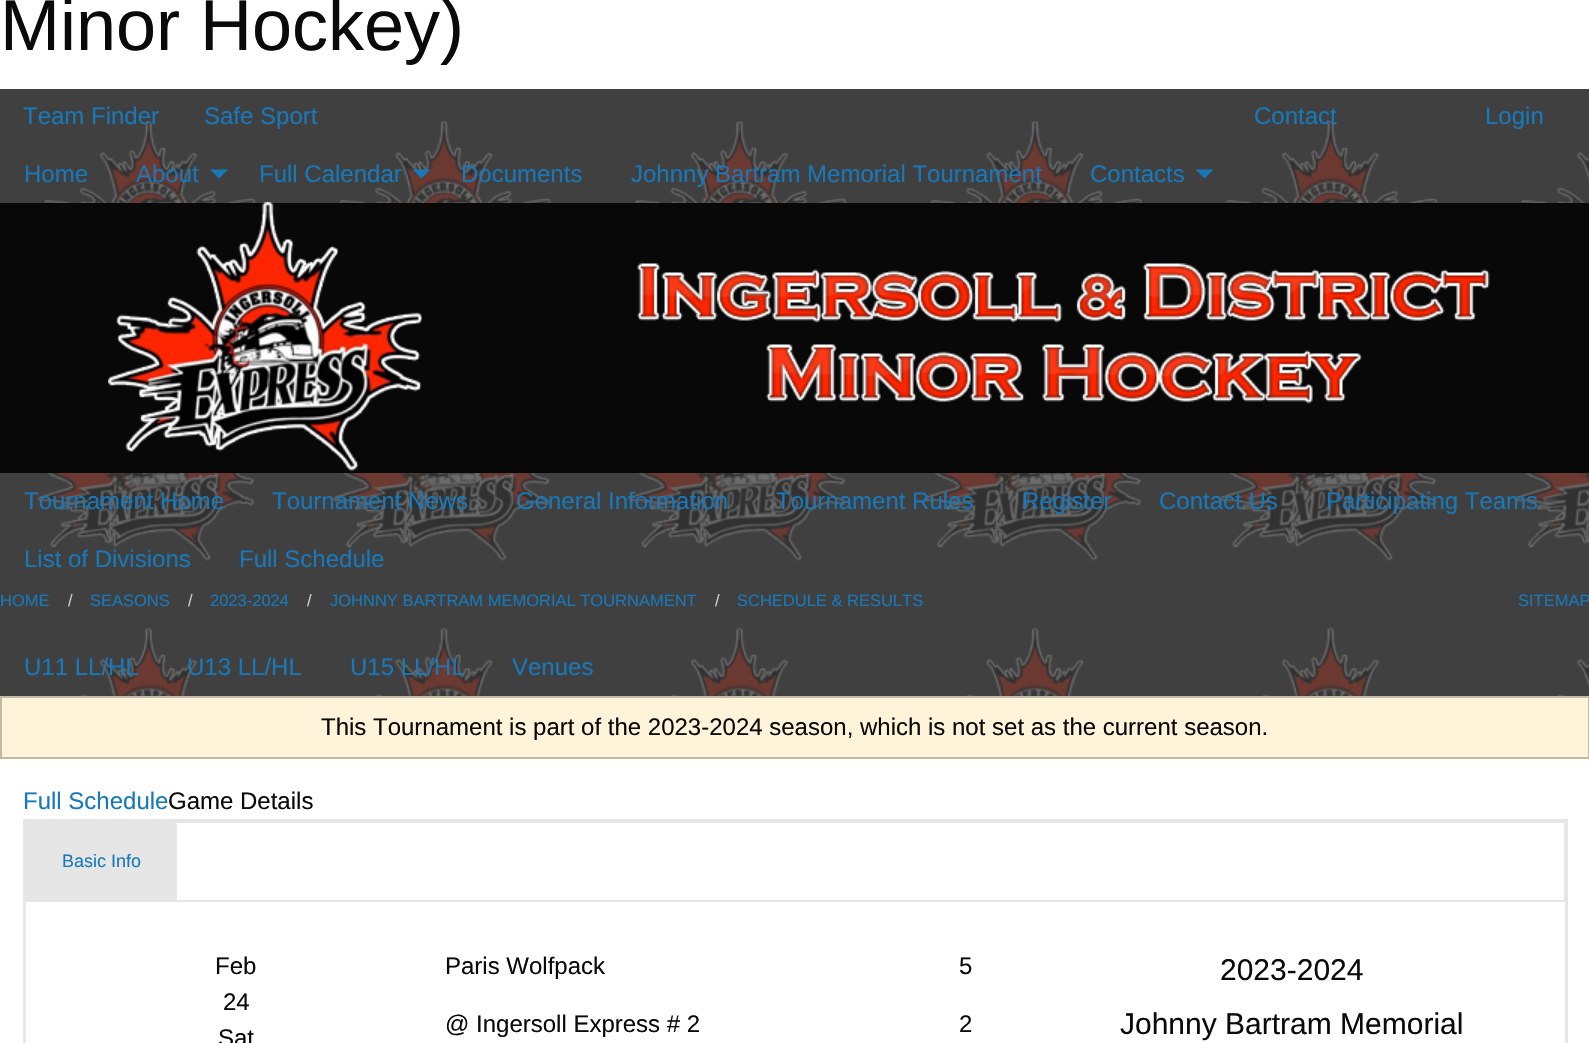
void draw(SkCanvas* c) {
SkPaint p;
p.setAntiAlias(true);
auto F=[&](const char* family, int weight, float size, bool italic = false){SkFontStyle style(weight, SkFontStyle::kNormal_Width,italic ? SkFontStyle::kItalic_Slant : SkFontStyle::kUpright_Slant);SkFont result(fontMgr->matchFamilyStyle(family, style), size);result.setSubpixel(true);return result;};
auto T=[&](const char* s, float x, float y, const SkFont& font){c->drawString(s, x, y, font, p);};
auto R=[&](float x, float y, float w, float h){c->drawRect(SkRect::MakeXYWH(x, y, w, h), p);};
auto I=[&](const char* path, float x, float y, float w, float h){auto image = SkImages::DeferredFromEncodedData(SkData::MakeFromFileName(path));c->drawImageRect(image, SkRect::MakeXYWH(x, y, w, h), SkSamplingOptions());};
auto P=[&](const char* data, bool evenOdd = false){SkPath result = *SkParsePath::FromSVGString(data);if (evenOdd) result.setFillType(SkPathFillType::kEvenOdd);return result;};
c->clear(0xffffffff);
auto f1 = F("Liberation Sans",400,72);
p.setColor(0xff0a0a0a);
T("Minor Hockey)",0,50,f1);
p.setColor(0xff404040);
R(0,89,1589,607);
I("1.png",37,121,1552,575);
auto f2 = F("Liberation Sans",400,24);
p.setColor(0xff1779ba);
T("Team Finder",23,124,f2);
T("Safe Sport",204,124,f2);
T("Contact",1254,124,f2);
T("Login",1485,124,f2);
T("Home",24,182,f2);
T("About",136,182,f2);
c->drawPath(P("M210 169.5h18l-9 9z"),p);
T("Full Calendar",259,182,f2);
c->drawPath(P("M412.5 169.5h18l-9 9z"),p);
T("Documents",461,182,f2);
T("Johnny Bartram Memorial Tournament",631,182,f2);
T("Contacts",1090,182,f2);
c->drawPath(P("M1195.5 169.5h18l-9 9z"),p);
p.setColor(0xff080808);
R(0,203,1589,270);
I("2.png",108,202,314,269);
I("3.png",637,263,853,141);
p.setColor(0xff1779ba);
T("Tournament Home",24,509,f2);
T("Tournament News",272,509,f2);
T("General Information",516,509,f2);
T("Tournament Rules",776,509,f2);
T("Register",1022,509,f2);
T("Contact Us",1159,509,f2);
T("Participating Teams",1326,509,f2);
T("List of Divisions",24,567,f2);
T("Full Schedule",239,567,f2);
auto f3 = F("Liberation Sans",400,16.5);
T("HOME",0,606,f3);
p.setColor(0xffcacaca);
T("/",68,606,f3);
p.setColor(0xff1779ba);
T("SEASONS",90,606,f3);
p.setColor(0xffcacaca);
T("/",188,606,f3);
p.setColor(0xff1779ba);
T("2023-2024",210,606,f3);
p.setColor(0xffcacaca);
T("/",307,606,f3);
p.setColor(0xff1779ba);
T("JOHNNY BARTRAM MEMORIAL TOURNAMENT",330,606,f3);
p.setColor(0xffcacaca);
T("/",715,606,f3);
p.setColor(0xff1779ba);
T("SCHEDULE & RESULTS",737,606,f3);
T("SITEMAP",1518,606,f3);
T("U11 LL/HL",24,675,f2);
T("U13 LL/HL",187,675,f2);
T("U15 LL/HL",350,675,f2);
T("Venues",512,675,f2);
p.setColor(0xfffff3d9);
c->drawRect(SkRect::MakeXYWH(1,697,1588,61),p);
p.setStroke(true);
p.setStrokeWidth(2);
p.setColor(0xffc2b9a5);
c->drawRect(SkRect::MakeXYWH(1,697,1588,61),p);
p.setStroke(false);
p.setColor(0xff0a0a0a);
T("This Tournament is part of the 2023-2024 season, which is not set as the current season.",321,735,f2);
p.setColor(0xff1779ba);
T("Full Schedule",23,809,f2);
p.setColor(0xff0a0a0a);
T("Game Details",168,809,f2);
p.setStroke(true);
p.setColor(0xffe6e6e6);
c->drawRect(SkRect::MakeXYWH(24,820,1543,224),p);
c->drawRect(SkRect::MakeXYWH(25,822,1540,79),p);
p.setStroke(false);
R(26,823,151,77);
auto f4 = F("Liberation Sans",400,18);
p.setColor(0xff1779ba);
T("Basic Info",62,867,f4);
p.setColor(0xffe6e6e6);
R(1565,902,1,141);
R(25,902,1,141);
p.setColor(0xff0a0a0a);
T("Feb",215,974,f2);
T("24",223,1010,f2);
T("Sat",218,1046,f2);
T("Paris Wolfpack",445,974,f2);
T("5",959,974,f2);
T("@ Ingersoll Express # 2",445,1032,f2);
T("2",959,1032,f2);
auto f5 = F("Liberation Sans",400,30);
T("2023-2024",1220,980,f5);
T("Johnny Bartram Memorial",1120,1034,f5);
}
